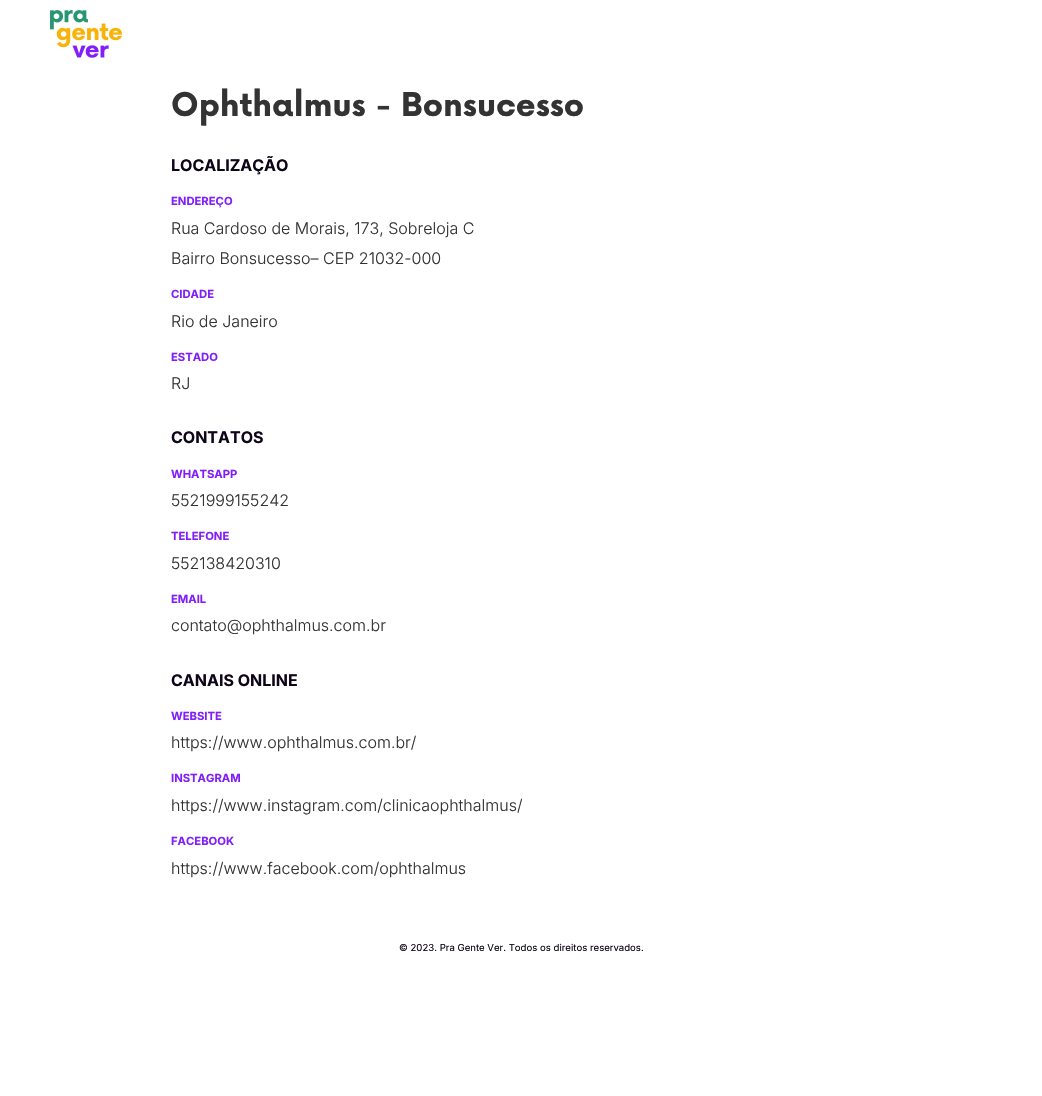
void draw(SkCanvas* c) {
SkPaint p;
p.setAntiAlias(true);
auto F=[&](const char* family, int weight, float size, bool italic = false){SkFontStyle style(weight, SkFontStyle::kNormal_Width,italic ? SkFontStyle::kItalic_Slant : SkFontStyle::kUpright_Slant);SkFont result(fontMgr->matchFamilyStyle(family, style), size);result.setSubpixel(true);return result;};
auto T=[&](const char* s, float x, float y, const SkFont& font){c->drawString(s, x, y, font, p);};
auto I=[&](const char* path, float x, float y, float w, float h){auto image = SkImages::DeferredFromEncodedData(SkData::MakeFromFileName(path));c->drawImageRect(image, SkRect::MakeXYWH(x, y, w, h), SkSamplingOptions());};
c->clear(0xffffffff);
I("1.png",50,10,72,48);
auto f1 = F("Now",700,32);
p.setColor(0xff333333);
T("Ophthalmus - Bonsucesso",171,116,f1);
auto f2 = F("Inter",700,16);
p.setColor(0xff0e0519);
T("LOCALIZAÇÃO",171,171,f2);
auto f3 = F("Inter",700,11.25);
p.setColor(0xff811ef9);
T("ENDEREÇO",171,205,f3);
auto f4 = F("Inter",300,16);
p.setColor(0xff333333);
T("Rua Cardoso de Morais, 173, Sobreloja C",171,234,f4);
T("Bairro Bonsucesso– CEP 21032-000",171,264,f4);
p.setColor(0xff811ef9);
T("CIDADE",171,298,f3);
p.setColor(0xff333333);
T("Rio de Janeiro",171,327,f4);
p.setColor(0xff811ef9);
T("ESTADO",171,361,f3);
p.setColor(0xff333333);
T("RJ",171,389,f4);
p.setColor(0xff0e0519);
T("CONTATOS",171,443,f2);
p.setColor(0xff811ef9);
T("WHATSAPP",171,478,f3);
p.setColor(0xff333333);
T("5521999155242",171,506,f4);
p.setColor(0xff811ef9);
T("TELEFONE",171,540,f3);
p.setColor(0xff333333);
T("552138420310",171,569,f4);
p.setColor(0xff811ef9);
T("EMAIL",171,603,f3);
p.setColor(0xff333333);
T("contato@ophthalmus.com.br",171,631,f4);
p.setColor(0xff0e0519);
T("CANAIS ONLINE",171,686,f2);
p.setColor(0xff811ef9);
T("WEBSITE",171,720,f3);
p.setColor(0xff333333);
T("https://www.ophthalmus.com.br/",171,748,f4);
p.setColor(0xff811ef9);
T("INSTAGRAM",171,782,f3);
p.setColor(0xff333333);
T("https://www.instagram.com/clinicaophthalmus/",171,811,f4);
p.setColor(0xff811ef9);
T("FACEBOOK",171,845,f3);
p.setColor(0xff333333);
T("https://www.facebook.com/ophthalmus",171,874,f4);
auto f5 = F("Inter",400,9.6);
p.setColor(0xff0e0519);
T("© 2023. Pra Gente Ver. Todos os direitos reservados.",399,951,f5);
}
